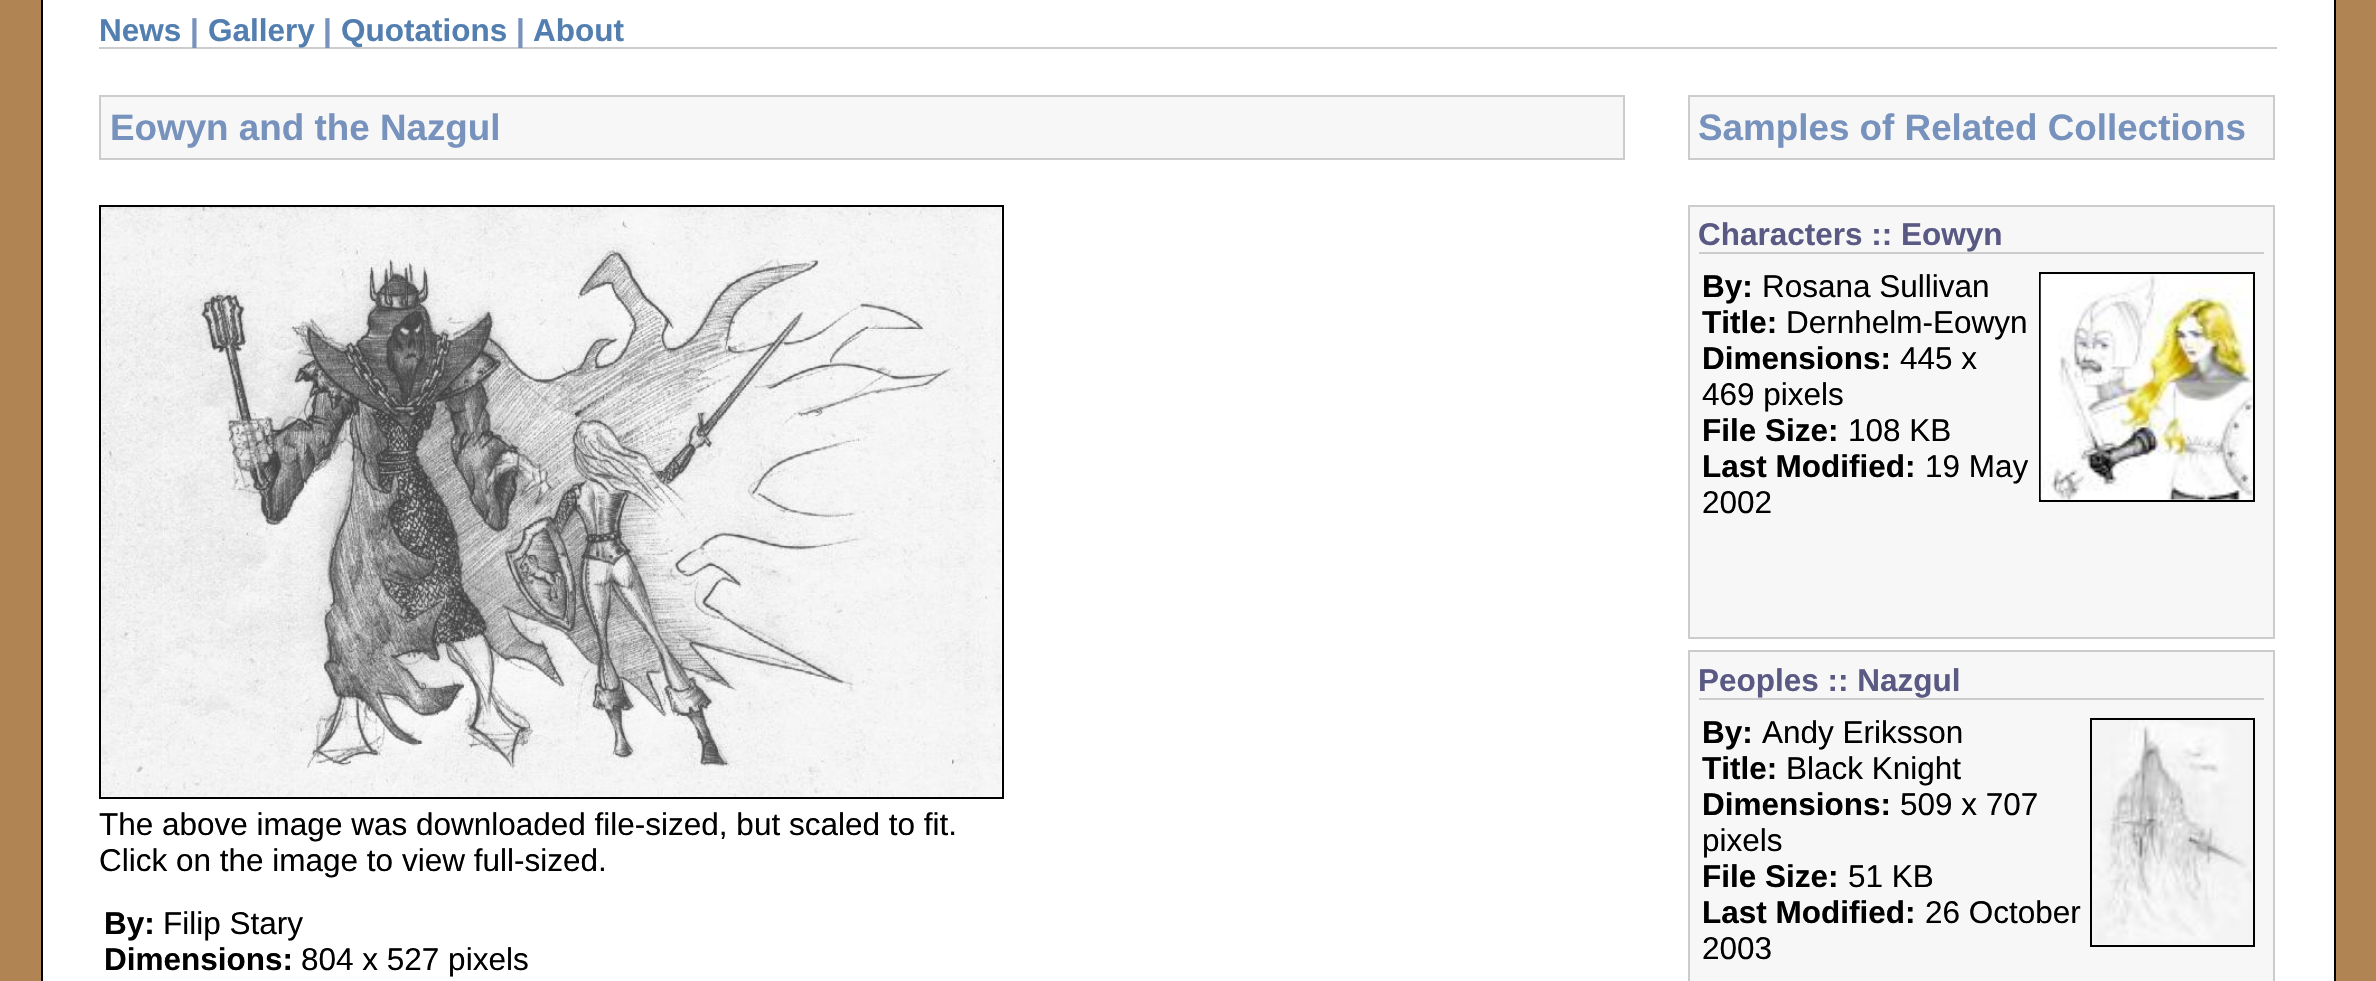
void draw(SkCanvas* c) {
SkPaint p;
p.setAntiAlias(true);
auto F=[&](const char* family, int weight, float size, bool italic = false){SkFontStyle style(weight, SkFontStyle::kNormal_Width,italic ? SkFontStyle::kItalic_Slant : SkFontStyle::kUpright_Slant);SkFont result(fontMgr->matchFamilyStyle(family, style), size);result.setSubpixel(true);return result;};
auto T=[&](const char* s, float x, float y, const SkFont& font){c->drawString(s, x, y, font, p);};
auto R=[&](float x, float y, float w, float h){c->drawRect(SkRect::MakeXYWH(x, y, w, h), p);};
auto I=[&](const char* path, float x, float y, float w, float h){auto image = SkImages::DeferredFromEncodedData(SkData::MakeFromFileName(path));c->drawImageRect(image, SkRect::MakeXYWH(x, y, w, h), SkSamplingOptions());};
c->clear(0xffb08553);
p.setColor(0xffffffff);
c->drawRect(SkRect::MakeXYWH(42,-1,2293,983),p);
p.setStroke(true);
p.setStrokeWidth(2);
p.setColor(0xff000000);
c->drawRect(SkRect::MakeXYWH(42,-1,2293,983),p);
p.setStroke(false);
p.setColor(0xffcccccc);
R(99,47,2178,2);
auto f1 = F("Liberation Sans",700,31.5);
p.setColor(0xff537eb0);
T("News",99,41,f1);
p.setColor(0xff7792bc);
T("|",190,41,f1);
p.setColor(0xff537eb0);
T("Gallery",208,41,f1);
p.setColor(0xff7792bc);
T("|",323,41,f1);
p.setColor(0xff537eb0);
T("Quotations",341,41,f1);
p.setColor(0xff7792bc);
T("|",516,41,f1);
p.setColor(0xff537eb0);
T("About",533,41,f1);
p.setColor(0xfff7f7f7);
c->drawRect(SkRect::MakeXYWH(100,96,1524,63),p);
p.setStroke(true);
p.setColor(0xffcccccc);
c->drawRect(SkRect::MakeXYWH(100,96,1524,63),p);
auto f2 = F("Liberation Sans",700,36.8);
p.setStroke(false);
p.setColor(0xff7792bc);
T("Eowyn and the Nazgul",110,140,f2);
p.setStroke(true);
p.setColor(0xff000000);
c->drawRect(SkRect::MakeXYWH(100,206,903,592),p);
I("1.png",101,207,901,590);
auto f3 = F("Liberation Sans",400,31.5);
p.setStroke(false);
T("The above image was downloaded file-sized, but scaled to fit.",99,835,f3);
T("Click on the image to view full-sized.",99,871,f3);
T("By:",104,934,f1);
T("Filip Stary",163,934,f3);
T("Dimensions:",104,970,f1);
T("804 x 527 pixels",301,970,f3);
p.setColor(0xfff7f7f7);
c->drawRect(SkRect::MakeXYWH(1689,96,585,63),p);
p.setStroke(true);
p.setColor(0xffcccccc);
c->drawRect(SkRect::MakeXYWH(1689,96,585,63),p);
p.setStroke(false);
p.setColor(0xff7792bc);
T("Samples of Related Collections",1698,140,f2);
p.setColor(0xfff7f7f7);
c->drawRect(SkRect::MakeXYWH(1689,206,585,432),p);
p.setStroke(true);
p.setColor(0xffcccccc);
c->drawRect(SkRect::MakeXYWH(1689,206,585,432),p);
p.setStroke(false);
R(1699,252,565,2);
p.setColor(0xff595983);
T("Characters :: Eowyn",1698,245,f1);
p.setColor(0xff000000);
T("By:",1702,297,f1);
T("Rosana Sullivan",1762,297,f3);
T("Title:",1702,333,f1);
T("Dernhelm-Eowyn",1786,333,f3);
T("Dimensions:",1702,369,f1);
T("445 x",1900,369,f3);
T("469 pixels",1702,405,f3);
T("File Size:",1702,441,f1);
T("108 KB",1848,441,f3);
T("Last Modified:",1702,477,f1);
T("19 May",1925,477,f3);
T("2002",1702,513,f3);
p.setStroke(true);
c->drawRect(SkRect::MakeXYWH(2040,273,214,228),p);
I("2.png",2040,274,213,226);
p.setStroke(false);
p.setColor(0xfff7f7f7);
c->drawRect(SkRect::MakeXYWH(1689,651,585,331),p);
p.setStroke(true);
p.setColor(0xffcccccc);
c->drawRect(SkRect::MakeXYWH(1689,651,585,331),p);
p.setStroke(false);
R(1699,698,565,2);
p.setColor(0xff595983);
T("Peoples :: Nazgul",1698,691,f1);
p.setColor(0xff000000);
T("By:",1702,743,f1);
T("Andy Eriksson",1762,743,f3);
T("Title:",1702,779,f1);
T("Black Knight",1786,779,f3);
T("Dimensions:",1702,815,f1);
T("509 x 707",1900,815,f3);
T("pixels",1702,851,f3);
T("File Size:",1702,887,f1);
T("51 KB",1848,887,f3);
T("Last Modified:",1702,923,f1);
T("26 October",1925,923,f3);
T("2003",1702,959,f3);
p.setStroke(true);
c->drawRect(SkRect::MakeXYWH(2091,719,163,227),p);
I("3.png",2093,720,159,224);
}
